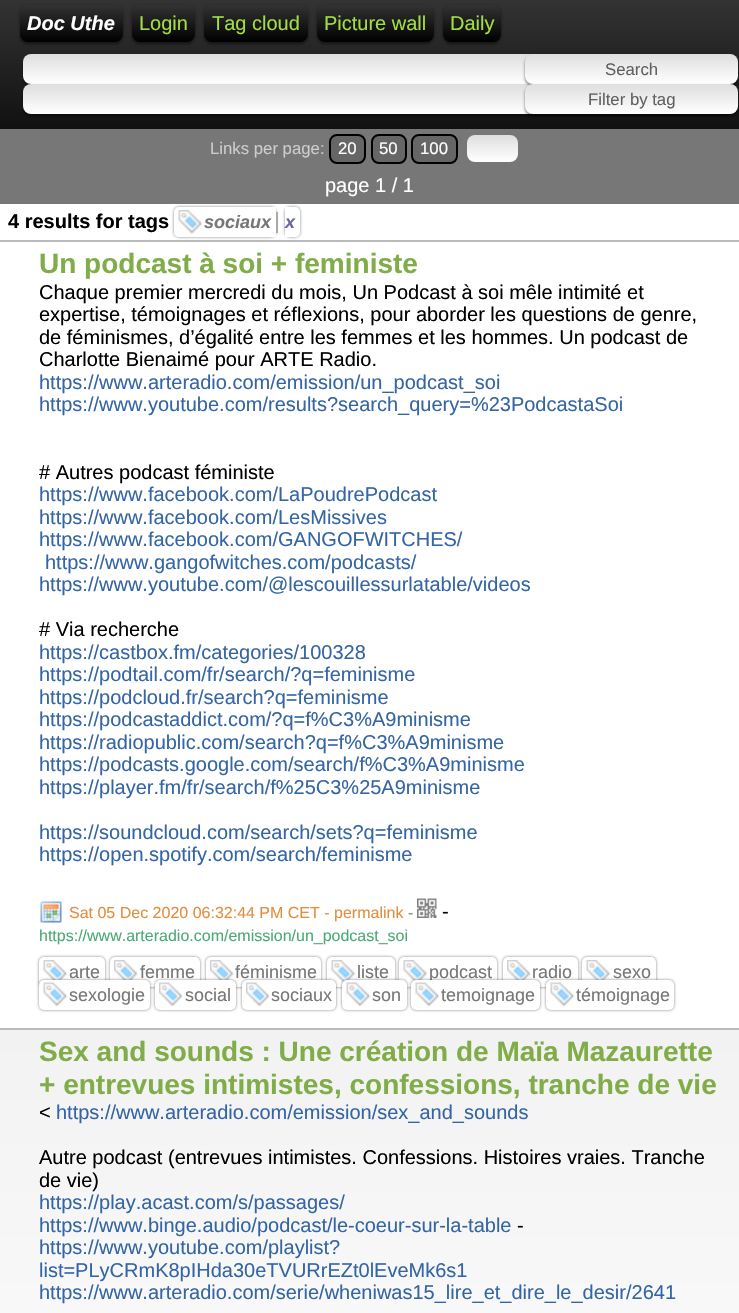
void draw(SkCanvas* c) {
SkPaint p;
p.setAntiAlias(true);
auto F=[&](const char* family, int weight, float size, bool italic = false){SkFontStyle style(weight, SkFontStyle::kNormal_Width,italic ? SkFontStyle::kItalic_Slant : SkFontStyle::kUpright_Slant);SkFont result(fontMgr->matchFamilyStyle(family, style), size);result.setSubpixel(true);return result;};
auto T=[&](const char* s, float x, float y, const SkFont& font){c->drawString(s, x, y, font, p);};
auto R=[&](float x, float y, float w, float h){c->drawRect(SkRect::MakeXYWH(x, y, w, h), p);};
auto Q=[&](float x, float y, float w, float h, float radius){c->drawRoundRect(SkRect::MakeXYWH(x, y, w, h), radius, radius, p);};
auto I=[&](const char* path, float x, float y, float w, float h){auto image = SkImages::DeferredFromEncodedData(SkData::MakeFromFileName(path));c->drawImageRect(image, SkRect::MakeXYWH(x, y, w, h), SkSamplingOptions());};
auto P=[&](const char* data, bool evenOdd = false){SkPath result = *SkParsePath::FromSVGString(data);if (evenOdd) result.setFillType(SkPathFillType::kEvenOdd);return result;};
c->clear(0xffffffff);
{
const SkColor colors[] = {0xff333333,0xff111111};
const float stops[] = {0,1};
const SkPoint ends[] = {{370,0}, {370,129}};
p.setShader(SkGradientShader::MakeLinear(ends, colors, stops, 2, SkTileMode::kClamp));
p.setAlpha(255);
}
R(0,0,739,129);
p.setShader(nullptr);
p.setColor(0x80000000);
p.setMaskFilter(SkMaskFilter::MakeBlur(kNormal_SkBlurStyle, 1.5));
c->drawRoundRect(SkRect::MakeXYWH(20,6,103,38),8,8,p);
p.setMaskFilter(nullptr);
{
const SkColor colors[] = {0xff333333,0xff000000};
const float stops[] = {0,1};
const SkPoint ends[] = {{71,4.5}, {71,42}};
p.setShader(SkGradientShader::MakeLinear(ends, colors, stops, 2, SkTileMode::kClamp));
p.setAlpha(255);
}
Q(20,5,103,37,8);
auto f1 = F("Liberation Sans",700,20,true);
p.setShader(nullptr);
p.setColor(0xffffffff);
T("Doc Uthe",27,30,f1);
p.setColor(0x80000000);
p.setMaskFilter(SkMaskFilter::MakeBlur(kNormal_SkBlurStyle, 1.5));
c->drawRoundRect(SkRect::MakeXYWH(132,6,63,38),8,8,p);
p.setMaskFilter(nullptr);
{
const SkColor colors[] = {0xff333333,0xff000000};
const float stops[] = {0,1};
const SkPoint ends[] = {{164,4.5}, {164,42}};
p.setShader(SkGradientShader::MakeLinear(ends, colors, stops, 2, SkTileMode::kClamp));
p.setAlpha(255);
}
Q(132,5,63,37,8);
auto f2 = F("Liberation Sans",400,20);
p.setShader(nullptr);
p.setColor(0xffa2dd42);
T("Login",139,30,f2);
p.setColor(0x80000000);
p.setMaskFilter(SkMaskFilter::MakeBlur(kNormal_SkBlurStyle, 1.5));
c->drawRoundRect(SkRect::MakeXYWH(204,6,104,38),8,8,p);
p.setMaskFilter(nullptr);
{
const SkColor colors[] = {0xff333333,0xff000000};
const float stops[] = {0,1};
const SkPoint ends[] = {{256,4.5}, {256,42}};
p.setShader(SkGradientShader::MakeLinear(ends, colors, stops, 2, SkTileMode::kClamp));
p.setAlpha(255);
}
Q(204,5,104,37,8);
p.setShader(nullptr);
p.setColor(0xffa2dd42);
T("Tag cloud",212,30,f2);
p.setColor(0x80000000);
p.setMaskFilter(SkMaskFilter::MakeBlur(kNormal_SkBlurStyle, 1.5));
c->drawRoundRect(SkRect::MakeXYWH(317,6,117,38),8,8,p);
p.setMaskFilter(nullptr);
{
const SkColor colors[] = {0xff333333,0xff000000};
const float stops[] = {0,1};
const SkPoint ends[] = {{375,4.5}, {375,42}};
p.setShader(SkGradientShader::MakeLinear(ends, colors, stops, 2, SkTileMode::kClamp));
p.setAlpha(255);
}
Q(317,5,117,37,8);
p.setShader(nullptr);
p.setColor(0xffa2dd42);
T("Picture wall",324,30,f2);
p.setColor(0x80000000);
p.setMaskFilter(SkMaskFilter::MakeBlur(kNormal_SkBlurStyle, 1.5));
c->drawRoundRect(SkRect::MakeXYWH(443,6,58,38),8,8,p);
p.setMaskFilter(nullptr);
{
const SkColor colors[] = {0xff333333,0xff000000};
const float stops[] = {0,1};
const SkPoint ends[] = {{472,4.5}, {472,42}};
p.setShader(SkGradientShader::MakeLinear(ends, colors, stops, 2, SkTileMode::kClamp));
p.setAlpha(255);
}
Q(443,5,58,37,8);
p.setShader(nullptr);
p.setColor(0xffa2dd42);
T("Daily",450,30,f2);
p.setColor(0x80000000);
p.setMaskFilter(SkMaskFilter::MakeBlur(kNormal_SkBlurStyle, 1.5));
c->drawRoundRect(SkRect::MakeXYWH(23,56,709,30),8,8,p);
p.setMaskFilter(nullptr);
{
const SkColor colors[] = {0xffdedede,0xffffffff};
const float stops[] = {0,1};
const SkPoint ends[] = {{377,54}, {377,84}};
p.setShader(SkGradientShader::MakeLinear(ends, colors, stops, 2, SkTileMode::kClamp));
p.setAlpha(255);
}
Q(23,54,709,30,8);
p.setShader(nullptr);
p.setColor(0x80000000);
p.setMaskFilter(SkMaskFilter::MakeBlur(kNormal_SkBlurStyle, 1.5));
c->drawRoundRect(SkRect::MakeXYWH(23,86,709,30),8,8,p);
p.setMaskFilter(nullptr);
{
const SkColor colors[] = {0xffdedede,0xffffffff};
const float stops[] = {0,1};
const SkPoint ends[] = {{377,84}, {377,114}};
p.setShader(SkGradientShader::MakeLinear(ends, colors, stops, 2, SkTileMode::kClamp));
p.setAlpha(255);
}
Q(23,84,709,30,8);
p.setShader(nullptr);
p.setColor(0x80000000);
p.setMaskFilter(SkMaskFilter::MakeBlur(kNormal_SkBlurStyle, 1.5));
c->drawRoundRect(SkRect::MakeXYWH(525,56,213,30),8,8,p);
p.setMaskFilter(nullptr);
{
const SkColor colors[] = {0xffdedede,0xffffffff};
const float stops[] = {0,1};
const SkPoint ends[] = {{632,54}, {632,84}};
p.setShader(SkGradientShader::MakeLinear(ends, colors, stops, 2, SkTileMode::kClamp));
p.setAlpha(255);
}
Q(525,54,213,30,8);
auto f3 = F("Liberation Sans",400,16.75);
p.setShader(nullptr);
p.setColor(0xff606060);
T("Search",605,75,f3);
p.setColor(0x80000000);
p.setMaskFilter(SkMaskFilter::MakeBlur(kNormal_SkBlurStyle, 1.5));
c->drawRoundRect(SkRect::MakeXYWH(525,86,213,30),8,8,p);
p.setMaskFilter(nullptr);
{
const SkColor colors[] = {0xffdedede,0xffffffff};
const float stops[] = {0,1};
const SkPoint ends[] = {{632,84}, {632,114}};
p.setShader(SkGradientShader::MakeLinear(ends, colors, stops, 2, SkTileMode::kClamp));
p.setAlpha(255);
}
Q(525,84,213,30,8);
p.setShader(nullptr);
p.setColor(0xff606060);
T("Filter by tag",588,105,f3);
p.setColor(0xff777777);
R(0,129,739,75);
p.setColor(0xffcccccc);
T("Links per page:",210,154,f3);
p.setColor(0xff666666);
c->drawRoundRect(SkRect::MakeXYWH(330,135,35,28),7,7,p);
p.setStroke(true);
p.setStrokeWidth(2);
p.setColor(0xff000000);
c->drawRoundRect(SkRect::MakeXYWH(330,135,35,28),7,7,p);
p.setStroke(false);
p.setColor(0xffffffff);
T("20",338,154,f3);
p.setColor(0xff666666);
c->drawRoundRect(SkRect::MakeXYWH(372,135,34,28),7,7,p);
p.setStroke(true);
p.setColor(0xff000000);
c->drawRoundRect(SkRect::MakeXYWH(372,135,34,28),7,7,p);
p.setStroke(false);
p.setColor(0xffffffff);
T("50",379,154,f3);
p.setColor(0xff666666);
c->drawRoundRect(SkRect::MakeXYWH(412,135,45,28),7,7,p);
p.setStroke(true);
p.setColor(0xff000000);
c->drawRoundRect(SkRect::MakeXYWH(412,135,45,28),7,7,p);
p.setStroke(false);
p.setColor(0xffffffff);
T("100",420,154,f3);
{
const SkColor colors[] = {0xffdedede,0xffffffff};
const float stops[] = {0,1};
const SkPoint ends[] = {{492,135}, {492,162}};
p.setShader(SkGradientShader::MakeLinear(ends, colors, stops, 2, SkTileMode::kClamp));
p.setAlpha(255);
}
Q(467,135,51,27,8);
p.setShader(nullptr);
p.setColor(0xffffffff);
T("page 1 / 1",325,192,f2);
auto f4 = F("Liberation Sans",700,20);
p.setColor(0xff000000);
T("4 results for tags",8,228,f4);
p.setColor(0xffbbbbbb);
R(0,240,739,2);
p.setColor(0x80000000);
p.setMaskFilter(SkMaskFilter::MakeBlur(kNormal_SkBlurStyle, 1.5));
c->drawRoundRect(SkRect::MakeXYWH(174,207,102,30),5,5,p);
p.setMaskFilter(nullptr);
p.setColor(0xffffffff);
c->drawPath(P("M179 207h97v30h-97c-3 0-5-2-5-5v-20c0-3 2-5 5-5z"),p);
I("1.png",178,210,25,24);
auto f5 = F("Liberation Sans",700,18,true);
p.setColor(0xff777777);
T("sociaux",204,228,f5);
p.setColor(0xffaaaaaa);
R(276,212,2,21);
p.setColor(0x80000000);
p.setMaskFilter(SkMaskFilter::MakeBlur(kNormal_SkBlurStyle, 1.5));
c->drawRoundRect(SkRect::MakeXYWH(285,207,15,30),5,5,p);
p.setMaskFilter(nullptr);
p.setColor(0xffffffff);
c->drawPath(P("M285 207h10c3 0 5 2 5 5v20c0 3-2 5-5 5h-10z"),p);
p.setColor(0xff6767a7);
T("x",285,228,f5);
auto f6 = F("Liberation Sans",700,28);
p.setColor(0xff80ad48);
T("Un podcast à soi + feministe",39,273,f6);
p.setColor(0xff000000);
T("Chaque premier mercredi du mois, Un Podcast à soi mêle intimité et",39,299,f2);
T("expertise, témoignages et réflexions, pour aborder les questions de genre,",39,321,f2);
T("de féminismes, d’égalité entre les femmes et les hommes. Un podcast de",39,344,f2);
T("Charlotte Bienaimé pour ARTE Radio.",39,366,f2);
p.setColor(0xff3465a4);
T("https://www.arteradio.com/emission/un_podcast_soi",39,389,f2);
T("https://www.youtube.com/results?search_query=%23PodcastaSoi",39,411,f2);
p.setColor(0xff000000);
T("# Autres podcast féministe",39,479,f2);
p.setColor(0xff3465a4);
T("https://www.facebook.com/LaPoudrePodcast",39,501,f2);
T("https://www.facebook.com/LesMissives",39,524,f2);
T("https://www.facebook.com/GANGOFWITCHES/",39,546,f2);
T("https://www.gangofwitches.com/podcasts/",45,569,f2);
T("https://www.youtube.com/@lescouillessurlatable/videos",39,591,f2);
p.setColor(0xff000000);
T("# Via recherche",39,636,f2);
p.setColor(0xff3465a4);
T("https://castbox.fm/categories/100328",39,659,f2);
T("https://podtail.com/fr/search/?q=feminisme",39,681,f2);
T("https://podcloud.fr/search?q=feminisme",39,704,f2);
T("https://podcastaddict.com/?q=f%C3%A9minisme",39,726,f2);
T("https://radiopublic.com/search?q=f%C3%A9minisme",39,749,f2);
T("https://podcasts.google.com/search/f%C3%A9minisme",39,771,f2);
T("https://player.fm/fr/search/f%25C3%25A9minisme",39,794,f2);
T("https://soundcloud.com/search/sets?q=feminisme",39,839,f2);
T("https://open.spotify.com/search/feminisme",39,861,f2);
I("2.png",40,901,22,22);
auto f7 = F("Liberation Sans",400,16);
p.setColor(0xffe28e3f);
T("Sat 05 Dec 2020 06:32:44 PM CET - permalink",69,918,f7);
p.setColor(0xff888888);
T("-",408,918,f7);
I("3.png",417,898,20,20);
p.setColor(0xff000000);
T("-",442,918,f2);
p.setColor(0xff4baa74);
T("https://www.arteradio.com/emission/un_podcast_soi",39,941,f7);
p.setColor(0x80000000);
p.setMaskFilter(SkMaskFilter::MakeBlur(kNormal_SkBlurStyle, 1.5));
c->drawRoundRect(SkRect::MakeXYWH(39,957,66,30),5,5,p);
p.setMaskFilter(nullptr);
p.setColor(0xffffffff);
Q(39,957,66,30,5);
I("4.png",43,960,25,20);
auto f8 = F("Liberation Sans",400,18);
p.setColor(0xff777777);
T("arte",69,978,f8);
p.setColor(0x80000000);
p.setMaskFilter(SkMaskFilter::MakeBlur(kNormal_SkBlurStyle, 1.5));
c->drawRoundRect(SkRect::MakeXYWH(110,957,90,30),5,5,p);
p.setMaskFilter(nullptr);
p.setColor(0xffffffff);
Q(110,957,90,30,5);
I("5.png",114,960,24,20);
p.setColor(0xff777777);
T("femme",140,978,f8);
p.setColor(0x80000000);
p.setMaskFilter(SkMaskFilter::MakeBlur(kNormal_SkBlurStyle, 1.5));
c->drawRoundRect(SkRect::MakeXYWH(206,957,115,30),5,5,p);
p.setMaskFilter(nullptr);
p.setColor(0xffffffff);
Q(206,957,115,30,5);
I("5.png",210,960,24,20);
p.setColor(0xff777777);
T("féminisme",235,978,f8);
p.setColor(0x80000000);
p.setMaskFilter(SkMaskFilter::MakeBlur(kNormal_SkBlurStyle, 1.5));
c->drawRoundRect(SkRect::MakeXYWH(327,957,68,30),5,5,p);
p.setMaskFilter(nullptr);
p.setColor(0xffffffff);
Q(327,957,68,30,5);
I("6.png",331,960,25,23);
p.setColor(0xff777777);
T("liste",357,978,f8);
p.setColor(0x80000000);
p.setMaskFilter(SkMaskFilter::MakeBlur(kNormal_SkBlurStyle, 1.5));
c->drawRoundRect(SkRect::MakeXYWH(399,957,98,30),5,5,p);
p.setMaskFilter(nullptr);
p.setColor(0xffffffff);
Q(399,957,98,30,5);
I("7.png",403,960,25,21);
p.setColor(0xff777777);
T("podcast",429,978,f8);
p.setColor(0x80000000);
p.setMaskFilter(SkMaskFilter::MakeBlur(kNormal_SkBlurStyle, 1.5));
c->drawRoundRect(SkRect::MakeXYWH(503,957,75,30),5,5,p);
p.setMaskFilter(nullptr);
p.setColor(0xffffffff);
Q(503,957,75,30,5);
I("8.png",507,960,24,20);
p.setColor(0xff777777);
T("radio",532,978,f8);
p.setColor(0x80000000);
p.setMaskFilter(SkMaskFilter::MakeBlur(kNormal_SkBlurStyle, 1.5));
c->drawRoundRect(SkRect::MakeXYWH(582,957,74,30),5,5,p);
p.setMaskFilter(nullptr);
p.setColor(0xffffffff);
Q(582,957,74,30,5);
I("9.png",586,960,25,20);
p.setColor(0xff777777);
T("sexo",613,978,f8);
p.setColor(0x80000000);
p.setMaskFilter(SkMaskFilter::MakeBlur(kNormal_SkBlurStyle, 1.5));
c->drawRoundRect(SkRect::MakeXYWH(39,980,111,30),5,5,p);
p.setMaskFilter(nullptr);
p.setColor(0xffffffff);
Q(39,980,111,30,5);
I("10.png",43,982,25,25);
p.setColor(0xff777777);
T("sexologie",69,1001,f8);
p.setColor(0x80000000);
p.setMaskFilter(SkMaskFilter::MakeBlur(kNormal_SkBlurStyle, 1.5));
c->drawRoundRect(SkRect::MakeXYWH(155,980,81,30),5,5,p);
p.setMaskFilter(nullptr);
p.setColor(0xffffffff);
Q(155,980,81,30,5);
I("11.png",159,982,24,25);
p.setColor(0xff777777);
T("social",185,1001,f8);
p.setColor(0x80000000);
p.setMaskFilter(SkMaskFilter::MakeBlur(kNormal_SkBlurStyle, 1.5));
c->drawRoundRect(SkRect::MakeXYWH(242,980,94,30),5,5,p);
p.setMaskFilter(nullptr);
p.setColor(0xffffffff);
Q(242,980,94,30,5);
I("11.png",246,982,24,25);
p.setColor(0xff777777);
T("sociaux",271,1001,f8);
p.setColor(0x80000000);
p.setMaskFilter(SkMaskFilter::MakeBlur(kNormal_SkBlurStyle, 1.5));
c->drawRoundRect(SkRect::MakeXYWH(342,980,65,30),5,5,p);
p.setMaskFilter(nullptr);
p.setColor(0xffffffff);
Q(342,980,65,30,5);
I("10.png",346,982,25,25);
p.setColor(0xff777777);
T("son",372,1001,f8);
p.setColor(0x80000000);
p.setMaskFilter(SkMaskFilter::MakeBlur(kNormal_SkBlurStyle, 1.5));
c->drawRoundRect(SkRect::MakeXYWH(411,980,129,30),5,5,p);
p.setMaskFilter(nullptr);
p.setColor(0xffffffff);
Q(411,980,129,30,5);
I("12.png",415,982,25,25);
p.setColor(0xff777777);
T("temoignage",441,1001,f8);
p.setColor(0x80000000);
p.setMaskFilter(SkMaskFilter::MakeBlur(kNormal_SkBlurStyle, 1.5));
c->drawRoundRect(SkRect::MakeXYWH(546,980,128,30),5,5,p);
p.setMaskFilter(nullptr);
p.setColor(0xffffffff);
Q(546,980,128,30,5);
I("12.png",550,982,25,25);
p.setColor(0xff777777);
T("témoignage",576,1001,f8);
{
const SkColor colors[] = {0xfff2f2f2,0xffffffff};
const float stops[] = {0,1};
const SkPoint ends[] = {{370,1029}, {370,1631}};
p.setShader(SkGradientShader::MakeLinear(ends, colors, stops, 2, SkTileMode::kClamp));
p.setAlpha(255);
}
R(0,1030,739,283);
p.setShader(nullptr);
p.setColor(0xffbbbbbb);
R(0,1028,739,2);
p.setColor(0xff80ad48);
T("Sex and sounds : Une création de Maïa Mazaurette",39,1061,f6);
T("+ entrevues intimistes, confessions, tranche de vie",39,1094,f6);
p.setColor(0xff000000);
T("<",39,1119,f2);
p.setColor(0xff3465a4);
T("https://www.arteradio.com/emission/sex_and_sounds",56,1119,f2);
p.setColor(0xff000000);
T("Autre podcast (entrevues intimistes. Confessions. Histoires vraies. Tranche",39,1164,f2);
T("de vie)",39,1187,f2);
p.setColor(0xff3465a4);
T("https://play.acast.com/s/passages/",39,1209,f2);
T("https://www.binge.audio/podcast/le-coeur-sur-la-table",39,1232,f2);
p.setColor(0xff000000);
T("-",517,1232,f2);
p.setColor(0xff3465a4);
T("https://www.youtube.com/playlist?",39,1254,f2);
T("list=PLyCRmK8pIHda30eTVURrEZt0lEveMk6s1",39,1277,f2);
T("https://www.arteradio.com/serie/wheniwas15_lire_et_dire_le_desir/2641",39,1299,f2);
}
